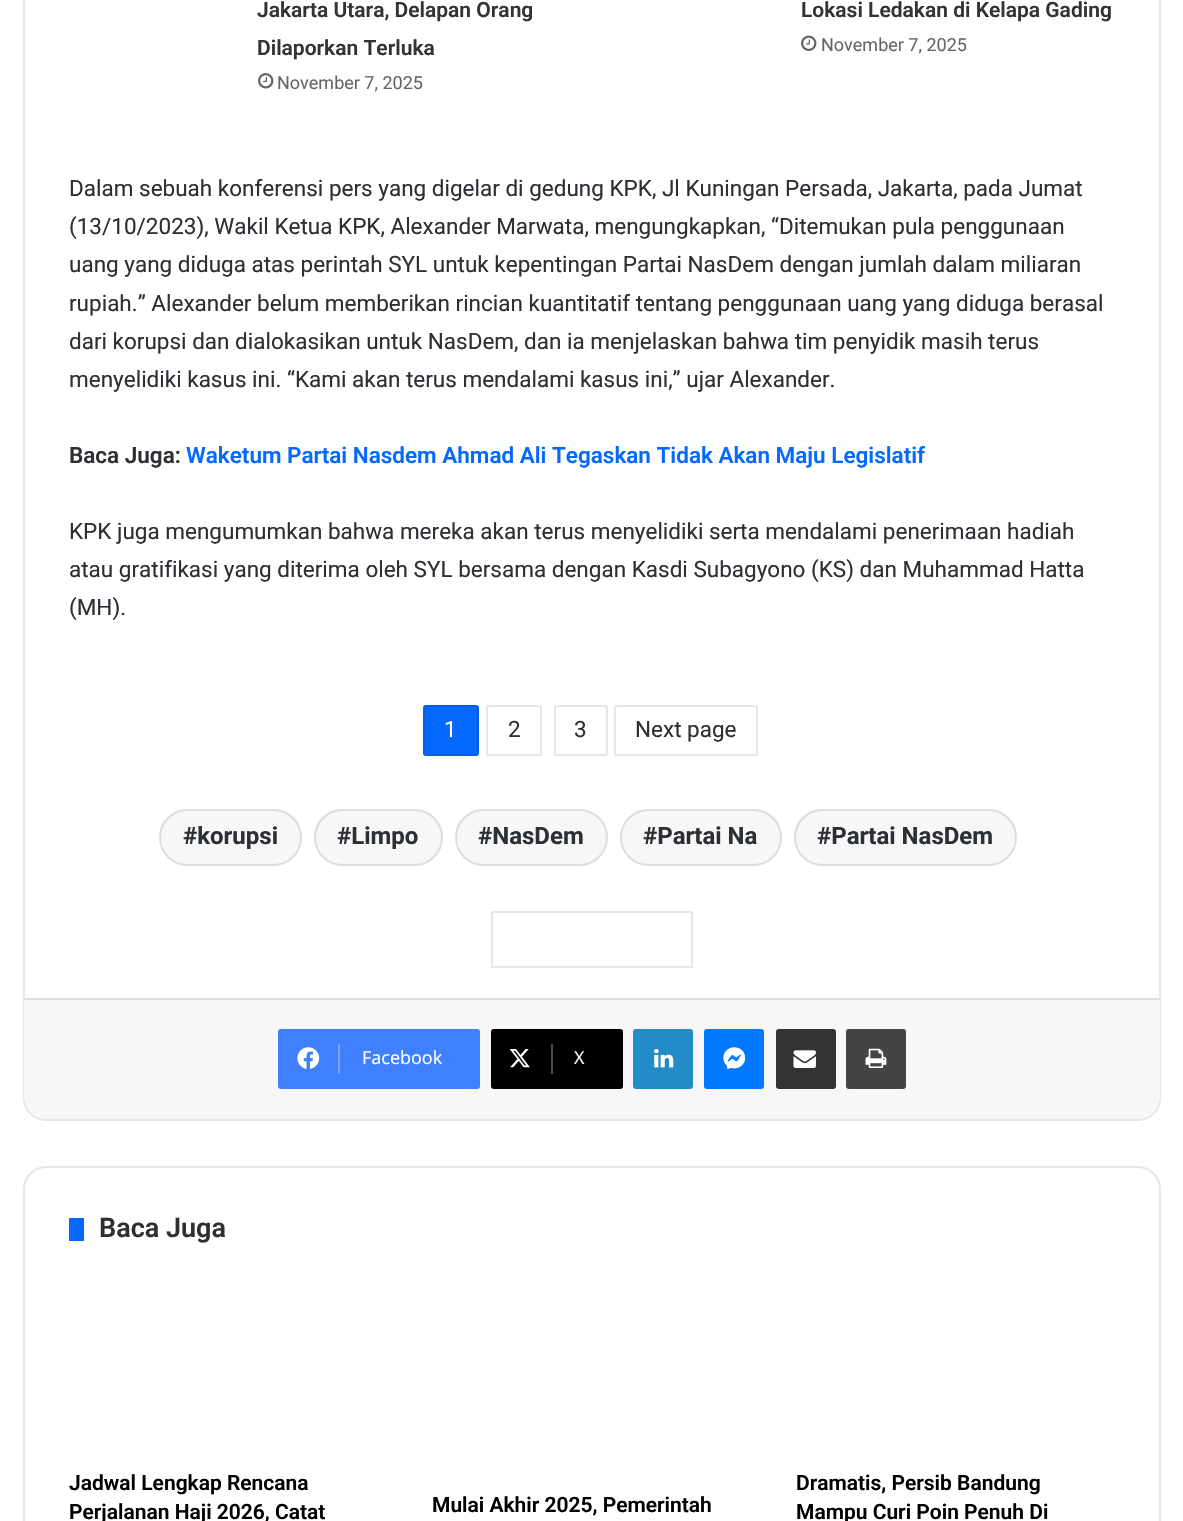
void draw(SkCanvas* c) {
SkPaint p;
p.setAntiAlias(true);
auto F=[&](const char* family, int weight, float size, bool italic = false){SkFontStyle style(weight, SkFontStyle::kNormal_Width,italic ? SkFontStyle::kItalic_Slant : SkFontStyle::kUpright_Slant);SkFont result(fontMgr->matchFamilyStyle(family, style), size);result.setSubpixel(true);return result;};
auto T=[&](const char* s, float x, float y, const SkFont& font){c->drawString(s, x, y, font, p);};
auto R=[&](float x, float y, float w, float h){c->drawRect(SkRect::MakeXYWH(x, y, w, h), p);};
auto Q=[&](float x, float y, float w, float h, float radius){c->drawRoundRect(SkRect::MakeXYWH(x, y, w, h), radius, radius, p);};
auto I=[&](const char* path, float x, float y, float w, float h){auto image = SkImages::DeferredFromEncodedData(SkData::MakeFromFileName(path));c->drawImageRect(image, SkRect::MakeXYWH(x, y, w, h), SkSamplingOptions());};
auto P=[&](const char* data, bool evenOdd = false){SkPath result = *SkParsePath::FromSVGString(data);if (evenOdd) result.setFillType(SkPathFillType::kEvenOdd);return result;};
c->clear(0xffffffff);
p.setStroke(true);
p.setStrokeWidth(2);
p.setColor(0xffe6e6e6);
c->drawRoundRect(SkRect::MakeXYWH(24,-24,1136,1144),22,22,p);
auto f1 = F("Roboto",600,21);
p.setStroke(false);
p.setColor(0xff333333);
T("Jakarta Utara, Delapan Orang",257,17,f1);
T("Dilaporkan Terluka",257,55,f1);
I("1.png",258,73,16,16);
auto f2 = F("Roboto",400,18);
p.setColor(0xff666666);
T("November 7, 2025",277,89,f2);
p.setColor(0xff333333);
T("Lokasi Ledakan di Kelapa Gading",801,17,f1);
I("2.png",801,35,16,16);
p.setColor(0xff666666);
T("November 7, 2025",821,51,f2);
auto f3 = F("Roboto",400,22.5);
p.setColor(0xff2c2f34);
T("Dalam sebuah konferensi pers yang digelar di gedung KPK, Jl Kuningan Persada, Jakarta, pada Jumat",69,196,f3);
T("(13/10/2023), Wakil Ketua KPK, Alexander Marwata, mengungkapkan, “Ditemukan pula penggunaan",69,234,f3);
T("uang yang diduga atas perintah SYL untuk kepentingan Partai NasDem dengan jumlah dalam miliaran",69,272,f3);
T("rupiah.” Alexander belum memberikan rincian kuantitatif tentang penggunaan uang yang diduga berasal",69,311,f3);
T("dari korupsi dan dialokasikan untuk NasDem, dan ia menjelaskan bahwa tim penyidik masih terus",69,349,f3);
T("menyelidiki kasus ini. “Kami akan terus mendalami kasus ini,” ujar Alexander.",69,387,f3);
auto f4 = F("Roboto",600,22.5);
T("Baca Juga:",69,463,f4);
p.setColor(0xff0669ff);
T("Waketum Partai Nasdem Ahmad Ali Tegaskan Tidak Akan Maju Legislatif",186,463,f4);
p.setColor(0xff2c2f34);
T("KPK juga mengumumkan bahwa mereka akan terus menyelidiki serta mendalami penerimaan hadiah",69,539,f3);
T("atau gratifikasi yang diterima oleh SYL bersama dengan Kasdi Subagyono (KS) dan Muhammad Hatta",69,577,f3);
T("(MH).",69,615,f3);
p.setColor(0xff0669ff);
Q(423,705,56,51,3);
p.setStroke(true);
p.setColor(0x1a000000);
c->drawRoundRect(SkRect::MakeXYWH(424,706,54,49),2,2,p);
p.setStroke(false);
p.setColor(0xffffffff);
T("1",444,737,f3);
p.setStroke(true);
p.setColor(0xffe6e6e6);
c->drawRoundRect(SkRect::MakeXYWH(487,706,54,49),2,2,p);
p.setStroke(false);
p.setColor(0xff2c2f34);
T("2",508,737,f3);
p.setStroke(true);
p.setColor(0xffe6e6e6);
c->drawRoundRect(SkRect::MakeXYWH(555,706,52,49),2,2,p);
p.setStroke(false);
p.setColor(0xff2c2f34);
T("3",574,737,f3);
p.setStroke(true);
p.setColor(0xffe6e6e6);
c->drawRoundRect(SkRect::MakeXYWH(615,706,142,49),2,2,p);
p.setStroke(false);
p.setColor(0xff2c2f34);
T("Next page",635,737,f3);
p.setColor(0xfff7f7f7);
Q(159,809,143,57,28.5);
p.setStroke(true);
p.setColor(0x1a000000);
c->drawRoundRect(SkRect::MakeXYWH(160,810,141,55),27.5,27.5,p);
auto f5 = F("Roboto",700,24);
p.setStroke(false);
p.setColor(0xff2c2f34);
T("#korupsi",183,844,f5);
p.setColor(0xfff7f7f7);
Q(314,809,129,57,28.5);
p.setStroke(true);
p.setColor(0x1a000000);
c->drawRoundRect(SkRect::MakeXYWH(315,810,127,55),27.5,27.5,p);
p.setStroke(false);
p.setColor(0xff2c2f34);
T("#Limpo",337,844,f5);
p.setColor(0xfff7f7f7);
Q(455,809,153,57,28.5);
p.setStroke(true);
p.setColor(0x1a000000);
c->drawRoundRect(SkRect::MakeXYWH(456,810,151,55),27.5,27.5,p);
p.setStroke(false);
p.setColor(0xff2c2f34);
T("#NasDem",478,844,f5);
p.setColor(0xfff7f7f7);
Q(620,809,162,57,28.5);
p.setStroke(true);
p.setColor(0x1a000000);
c->drawRoundRect(SkRect::MakeXYWH(621,810,160,55),27.5,27.5,p);
p.setStroke(false);
p.setColor(0xff2c2f34);
T("#Partai Na",643,844,f5);
p.setColor(0xfff7f7f7);
Q(794,809,223,57,28.5);
p.setStroke(true);
p.setColor(0x1a000000);
c->drawRoundRect(SkRect::MakeXYWH(795,810,221,55),27.5,27.5,p);
p.setStroke(false);
p.setColor(0xff2c2f34);
T("#Partai NasDem",817,844,f5);
p.setStroke(true);
p.setColor(0xffe6e6e6);
c->drawRect(SkRect::MakeXYWH(492,912,200,55),p);
p.setStroke(false);
p.setColor(0xfff7f7f7);
c->drawPath(P("M24 998h1136v98c0 12.5-10.5 23-23 23h-1090c-12.5 0-23-10.5-23-23z"),p);
p.setColor(0xffdedede);
R(24,998,1136,2);
p.setColor(0xff4080ff);
Q(278,1029,202,60,3);
I("3.png",297,1047,23,22);
p.setColor(0xff79a6ff);
R(338,1044,2,30);
auto f6 = F("Open Sans",400,18);
p.setColor(0xffffffff);
T("Facebook",362,1064,f6);
p.setColor(0xff000000);
Q(491,1029,132,60,3);
I("4.png",509,1049,21,19);
p.setColor(0xff4d4d4d);
R(551,1044,2,30);
p.setColor(0xffffffff);
T("X",574,1064,f6);
p.setColor(0xff238cc8);
Q(633,1029,60,60,3);
I("5.png",654,1049,20,19);
p.setColor(0xff0078ff);
Q(704,1029,60,60,3);
I("6.png",723,1047,23,22);
p.setColor(0xff333333);
Q(776,1029,60,60,3);
I("7.png",793,1050,23,18);
p.setColor(0xff444444);
Q(846,1029,60,60,3);
I("8.png",865,1048,22,20);
p.setStroke(true);
p.setColor(0xffe6e6e6);
c->drawRoundRect(SkRect::MakeXYWH(24,1167,1136,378),22,22,p);
p.setStroke(false);
p.setColor(0xff0669ff);
R(69,1218,15,23);
auto f7 = F("Roboto",600,27);
p.setColor(0xff2c2f34);
T("Baca Juga",99,1237,f7);
p.setColor(0xff000000);
T("Jadwal Lengkap Rencana",69,1490,f1);
T("Perjalanan Haji 2026, Catat",69,1519,f1);
T("Mulai Akhir 2025, Pemerintah",432,1512,f1);
T("Dramatis, Persib Bandung",796,1490,f1);
T("Mampu Curi Poin Penuh Di",796,1519,f1);
}
